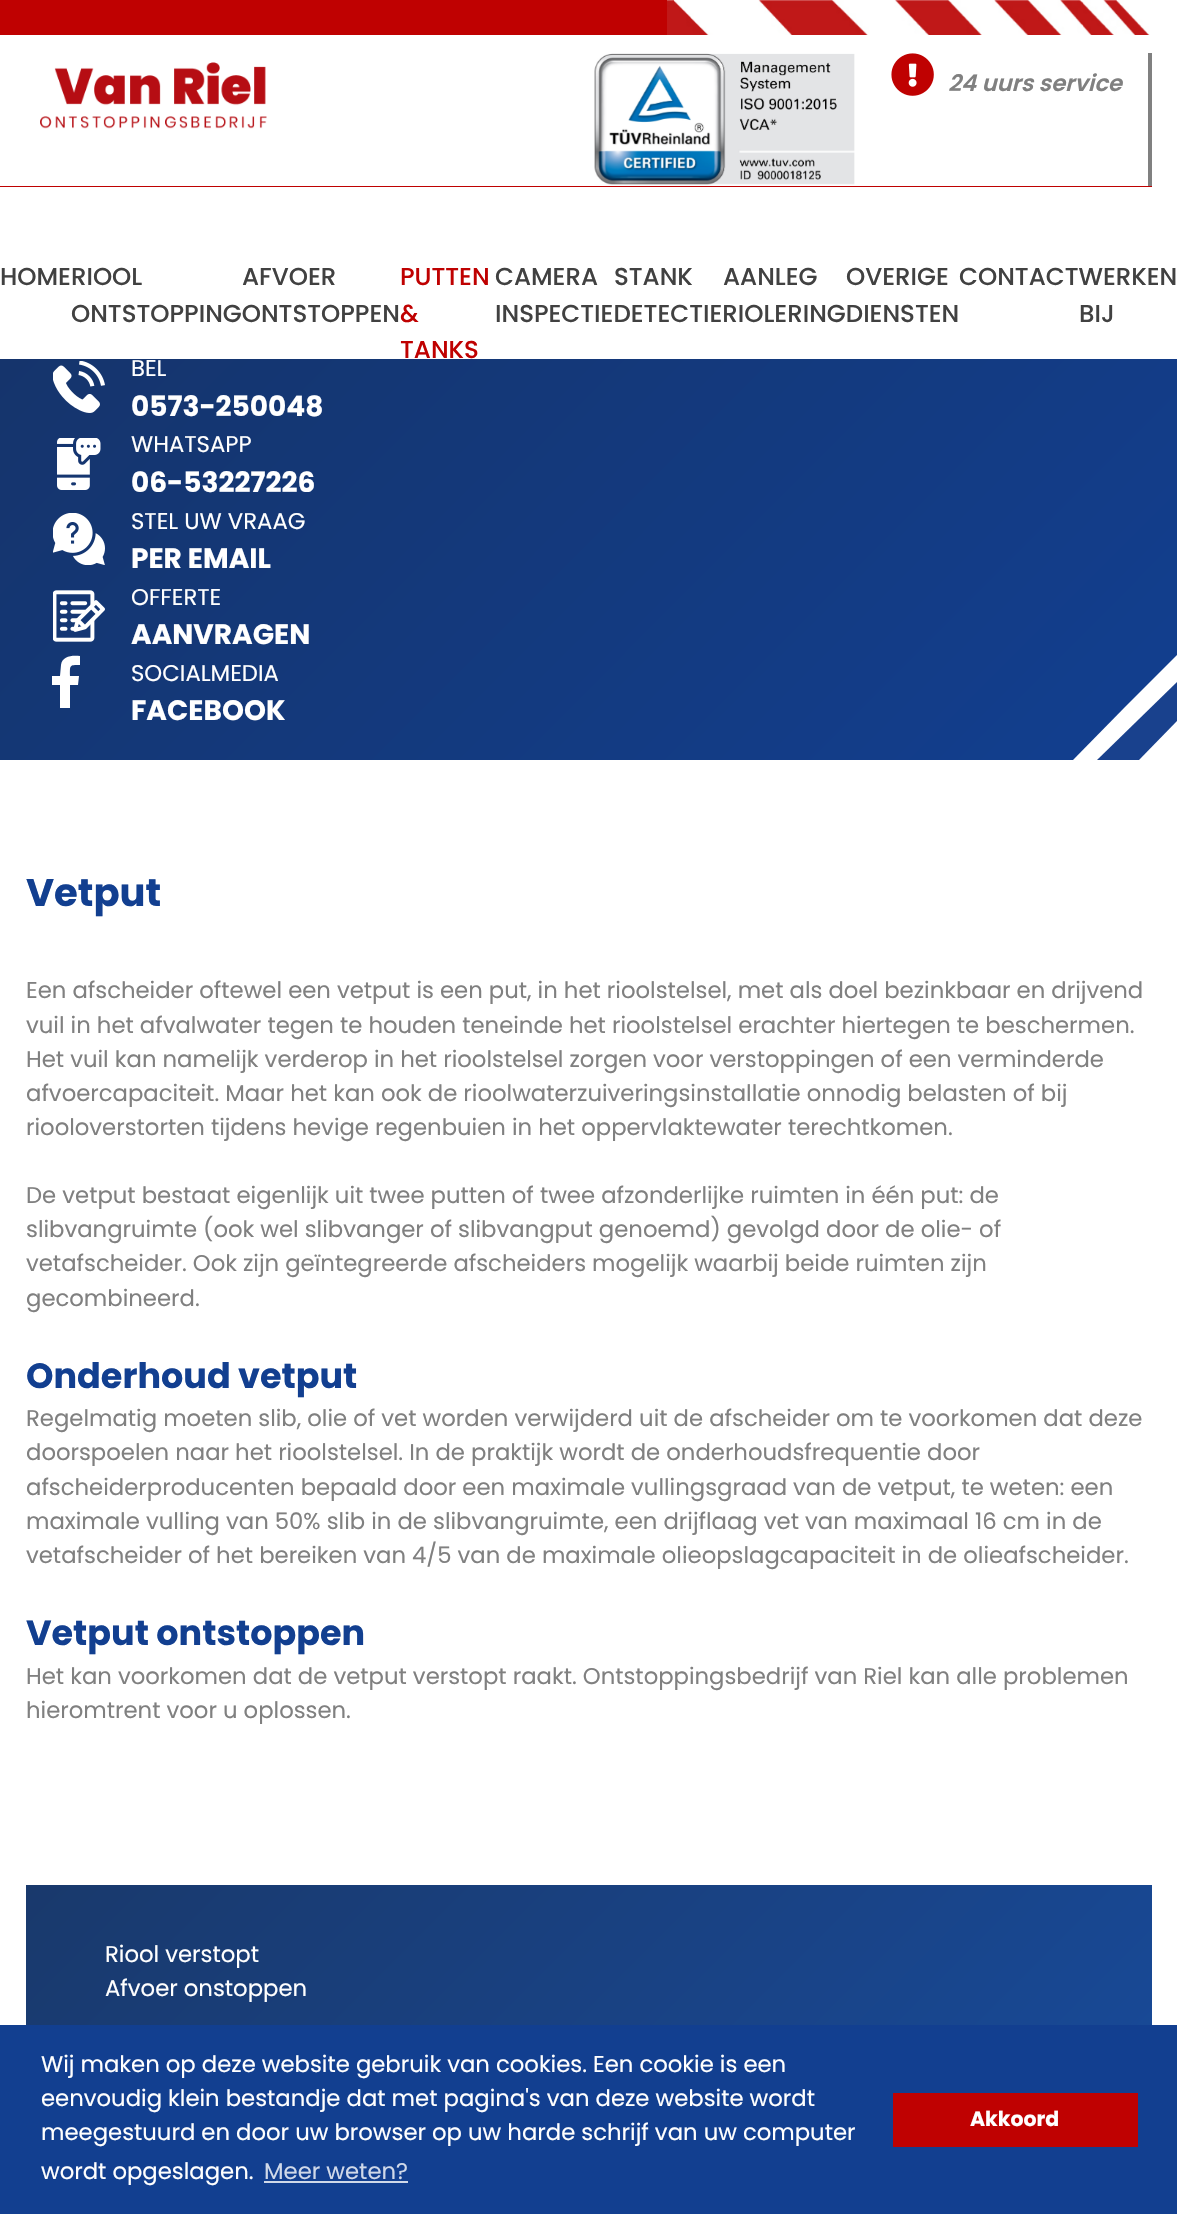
void draw(SkCanvas* c) {
SkPaint p;
p.setAntiAlias(true);
auto F=[&](const char* family, int weight, float size, bool italic = false){SkFontStyle style(weight, SkFontStyle::kNormal_Width,italic ? SkFontStyle::kItalic_Slant : SkFontStyle::kUpright_Slant);SkFont result(fontMgr->matchFamilyStyle(family, style), size);result.setSubpixel(true);return result;};
auto T=[&](const char* s, float x, float y, const SkFont& font){c->drawString(s, x, y, font, p);};
auto R=[&](float x, float y, float w, float h){c->drawRect(SkRect::MakeXYWH(x, y, w, h), p);};
auto I=[&](const char* path, float x, float y, float w, float h){auto image = SkImages::DeferredFromEncodedData(SkData::MakeFromFileName(path));c->drawImageRect(image, SkRect::MakeXYWH(x, y, w, h), SkSamplingOptions());};
auto P=[&](const char* data, bool evenOdd = false){SkPath result = *SkParsePath::FromSVGString(data);if (evenOdd) result.setFillType(SkPathFillType::kEvenOdd);return result;};
c->clear(0xffffffff);
p.setColor(0xffbf0101);
R(0,186,1152,1);
R(0,0,667,35);
I("1.png",667,0,485,35);
I("2.png",40,62,227,67);
I("3.png",594,53,261,132);
p.setColor(0xff808080);
R(1148,53,4,133);
I("4.png",891,53,43,43);
auto f1 = F("Poppins",600,22.75,true);
T("24 uurs service",948,91,f1);
auto f2 = F("Poppins",500,24.5);
p.setColor(0xff414141);
T("HOMERIOOL",0,285,f2);
T("AFVOER",242,285,f2);
p.setColor(0xffbf0101);
T("PUTTEN",400,285,f2);
T("&",400,322,f2);
T("TANKS",400,358,f2);
p.setColor(0xff414141);
T("CAMERA",495,285,f2);
T("INSPECTIEDETECTIERIOLERINGDIENSTEN",495,322,f2);
T("STANK",614,285,f2);
T("AANLEG",723,285,f2);
T("OVERIGE",846,285,f2);
T("CONTACTWERKEN",959,285,f2);
T("ONTSTOPPINGONTSTOPPEN",71,322,f2);
T("BIJ",1079,322,f2);
{
const SkColor colors[] = {0xff15346b,0xff123f90};
const float stops[] = {0,1};
const SkPoint ends[] = {{186,140}, {992,945}};
p.setShader(SkGradientShader::MakeLinear(ends, colors, stops, 2, SkTileMode::kClamp));
p.setAlpha(255);
}
R(0,359,1177,401);
I("5.png",53,361,52,52);
auto f3 = F("Poppins",400,22.75);
p.setShader(nullptr);
p.setColor(0xffffffff);
T("BEL",131,376,f3);
auto f4 = F("Poppins",700,28);
T("0573-250048",131,416,f4);
I("6.png",57,438,44,52);
T("WHATSAPP",131,452,f3);
T("06-53227226",131,492,f4);
I("7.png",53,513,52,52);
T("STEL UW VRAAG",131,529,f3);
T("PER EMAIL",131,568,f4);
I("8.png",53,590,52,52);
T("OFFERTE",131,605,f3);
T("AANVRAGEN",131,644,f4);
c->drawPath(P("M60 708v-23h-8v-9h8l1-11c1-9 11-10 19-9v9c-11 0-10 0-10 11h9l-1 9h-8v23z"),p);
T("SOCIALMEDIA",131,681,f3);
T("FACEBOOK",131,720,f4);
c->drawPath(P("M1125 707l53-53v106h-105z"),p);
p.setColor(0xff19418d);
c->drawPath(P("M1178 681v39l-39 40h-42z"),p);
auto f5 = F("Poppins",700,38.5);
p.setColor(0xff123f90);
T("Vetput",26,906,f5);
p.setColor(0xff808080);
T("Een afscheider oftewel een vetput is een put, in het rioolstelsel, met als doel bezinkbaar en drijvend",26,998,f3);
T("vuil in het afvalwater tegen te houden teneinde het rioolstelsel erachter hiertegen te beschermen.",26,1033,f3);
T("Het vuil kan namelijk verderop in het rioolstelsel zorgen voor verstoppingen of een verminderde",26,1067,f3);
T("afvoercapaciteit. Maar het kan ook de rioolwaterzuiveringsinstallatie onnodig belasten of bij",26,1101,f3);
T("riooloverstorten tijdens hevige regenbuien in het oppervlaktewater terechtkomen.",26,1135,f3);
T("De vetput bestaat eigenlijk uit twee putten of twee afzonderlijke ruimten in één put: de",26,1203,f3);
T("slibvangruimte (ook wel slibvanger of slibvangput genoemd) gevolgd door de olie- of",26,1237,f3);
T("vetafscheider. Ook zijn geïntegreerde afscheiders mogelijk waarbij beide ruimten zijn",26,1271,f3);
T("gecombineerd.",26,1306,f3);
auto f6 = F("Poppins",700,35);
p.setColor(0xff123f90);
T("Onderhoud vetput",26,1388,f6);
p.setColor(0xff808080);
T("Regelmatig moeten slib, olie of vet worden verwijderd uit de afscheider om te voorkomen dat deze",26,1426,f3);
T("doorspoelen naar het rioolstelsel. In de praktijk wordt de onderhoudsfrequentie door",26,1460,f3);
T("afscheiderproducenten bepaald door een maximale vullingsgraad van de vetput, te weten: een",26,1495,f3);
T("maximale vulling van 50% slib in de slibvangruimte, een drijflaag vet van maximaal 16 cm in de",26,1529,f3);
T("vetafscheider of het bereiken van 4/5 van de maximale olieopslagcapaciteit in de olieafscheider.",26,1563,f3);
p.setColor(0xff123f90);
T("Vetput ontstoppen",26,1645,f6);
p.setColor(0xff808080);
T("Het kan voorkomen dat de vetput verstopt raakt. Ontstoppingsbedrijf van Riel kan alle problemen",26,1684,f3);
T("hieromtrent voor u oplossen.",26,1718,f3);
{
const SkColor colors[] = {0xff19396c,0xff1851ab};
const float stops[] = {0,1};
const SkPoint ends[] = {{105,1806}, {1073,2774}};
p.setShader(SkGradientShader::MakeLinear(ends, colors, stops, 2, SkTileMode::kClamp));
p.setAlpha(255);
}
R(26,1885,1126,140);
p.setShader(nullptr);
p.setColor(0xffffffff);
T("Riool verstopt",105,1962,f3);
T("Afvoer onstoppen",105,1996,f3);
p.setColor(0xff123f90);
R(0,2025,1177,189);
p.setColor(0xffffffff);
T("Wij maken op deze website gebruik van cookies. Een cookie is een",41,2072,f3);
T("eenvoudig klein bestandje dat met pagina's van deze website wordt",41,2106,f3);
T("meegestuurd en door uw browser op uw harde schrijf van uw computer",41,2140,f3);
T("wordt opgeslagen.",41,2179,f3);
p.setColor(0xffd0d9e9);
T("Meer weten?",264,2179,f3);
R(264,2181,144,2);
p.setColor(0xffbf0101);
R(893,2093,245,54);
auto f7 = F("Poppins",700,20.5);
p.setColor(0xffffffff);
T("Akkoord",970,2126,f7);
}
